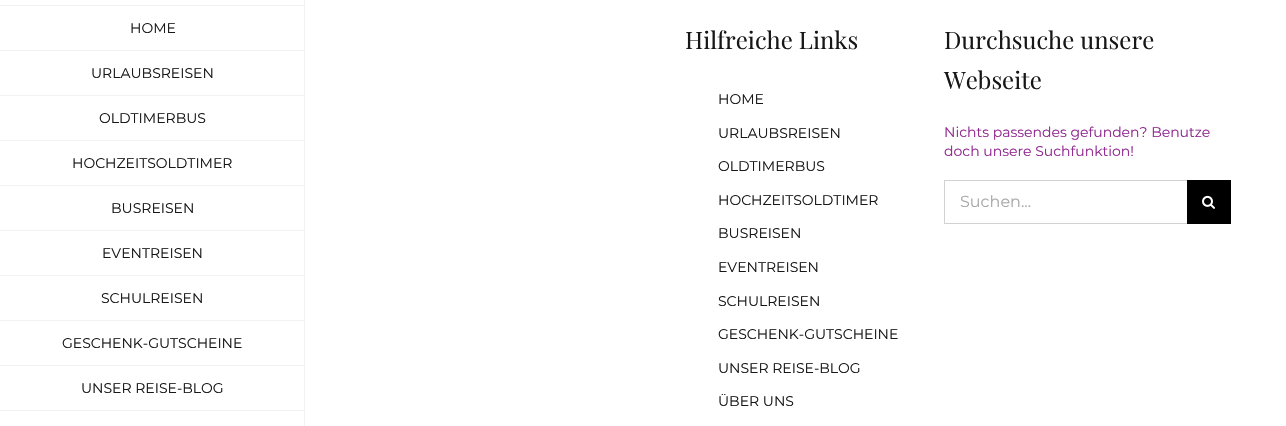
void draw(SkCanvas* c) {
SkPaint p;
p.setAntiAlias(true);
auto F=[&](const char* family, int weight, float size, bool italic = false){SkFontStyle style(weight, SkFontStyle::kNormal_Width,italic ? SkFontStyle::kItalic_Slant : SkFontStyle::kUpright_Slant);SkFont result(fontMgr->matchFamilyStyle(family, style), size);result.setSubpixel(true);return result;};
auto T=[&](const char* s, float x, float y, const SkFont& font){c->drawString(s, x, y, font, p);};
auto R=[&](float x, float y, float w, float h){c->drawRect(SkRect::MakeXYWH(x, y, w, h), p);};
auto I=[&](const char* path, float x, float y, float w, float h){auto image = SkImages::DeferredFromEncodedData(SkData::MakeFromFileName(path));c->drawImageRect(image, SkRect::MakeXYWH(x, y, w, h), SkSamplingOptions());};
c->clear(0xffffffff);
p.setColor(0xfff2f2f2);
R(304,0,1,426);
R(0,5,305,1);
R(0,50,305,1);
auto f1 = F("Montserrat",400,14);
p.setColor(0xff171717);
T("HOME",130,33,f1);
p.setColor(0xfff2f2f2);
R(0,95,305,1);
p.setColor(0xff171717);
T("URLAUBSREISEN",91,78,f1);
p.setColor(0xfff2f2f2);
R(0,140,305,1);
p.setColor(0xff171717);
T("OLDTIMERBUS",99,123,f1);
p.setColor(0xfff2f2f2);
R(0,185,305,1);
p.setColor(0xff171717);
T("HOCHZEITSOLDTIMER",72,168,f1);
p.setColor(0xfff2f2f2);
R(0,230,305,1);
p.setColor(0xff171717);
T("BUSREISEN",111,213,f1);
p.setColor(0xfff2f2f2);
R(0,275,305,1);
p.setColor(0xff171717);
T("EVENTREISEN",102,258,f1);
p.setColor(0xfff2f2f2);
R(0,320,305,1);
p.setColor(0xff171717);
T("SCHULREISEN",101,303,f1);
p.setColor(0xfff2f2f2);
R(0,365,305,1);
p.setColor(0xff171717);
T("GESCHENK-GUTSCHEINE",62,348,f1);
p.setColor(0xfff2f2f2);
R(0,410,305,1);
p.setColor(0xff171717);
T("UNSER REISE-BLOG",81,393,f1);
auto f2 = F("Playfair Display",400,24);
T("Hilfreiche Links",685,49,f2);
T("HOME",718,104,f1);
T("URLAUBSREISEN",718,138,f1);
T("OLDTIMERBUS",718,171,f1);
T("HOCHZEITSOLDTIMER",718,205,f1);
T("BUSREISEN",718,238,f1);
T("EVENTREISEN",718,272,f1);
T("SCHULREISEN",718,306,f1);
T("GESCHENK-GUTSCHEINE",718,339,f1);
T("UNSER REISE-BLOG",718,373,f1);
T("ÜBER UNS",718,406,f1);
T("Durchsuche unsere",944,49,f2);
T("Webseite",944,89,f2);
p.setColor(0xff902790);
T("Nichts passendes gefunden? Benutze",944,137,f1);
T("doch unsere Suchfunktion!",944,156,f1);
p.setColor(0xffd2d2d2);
R(944,180,243,1);
R(944,223,243,1);
R(944,180,1,44);
auto f3 = F("Montserrat",400,16);
p.setColor(0xffaaa9a9);
T("Suchen...",960,207,f3);
p.setColor(0xff000000);
R(1187,180,44,44);
I("1.png",1202,195,13,14);
}
